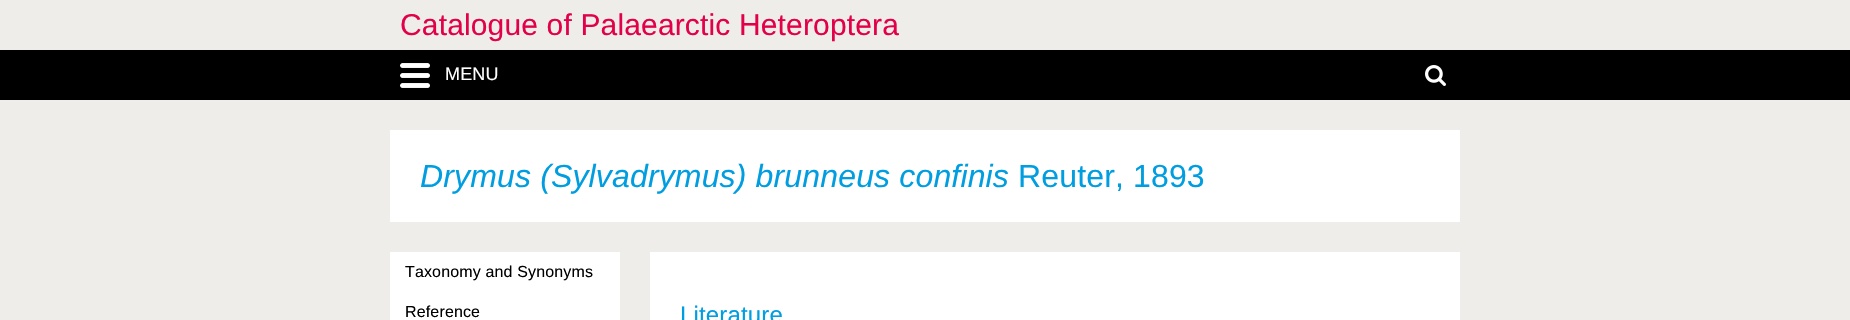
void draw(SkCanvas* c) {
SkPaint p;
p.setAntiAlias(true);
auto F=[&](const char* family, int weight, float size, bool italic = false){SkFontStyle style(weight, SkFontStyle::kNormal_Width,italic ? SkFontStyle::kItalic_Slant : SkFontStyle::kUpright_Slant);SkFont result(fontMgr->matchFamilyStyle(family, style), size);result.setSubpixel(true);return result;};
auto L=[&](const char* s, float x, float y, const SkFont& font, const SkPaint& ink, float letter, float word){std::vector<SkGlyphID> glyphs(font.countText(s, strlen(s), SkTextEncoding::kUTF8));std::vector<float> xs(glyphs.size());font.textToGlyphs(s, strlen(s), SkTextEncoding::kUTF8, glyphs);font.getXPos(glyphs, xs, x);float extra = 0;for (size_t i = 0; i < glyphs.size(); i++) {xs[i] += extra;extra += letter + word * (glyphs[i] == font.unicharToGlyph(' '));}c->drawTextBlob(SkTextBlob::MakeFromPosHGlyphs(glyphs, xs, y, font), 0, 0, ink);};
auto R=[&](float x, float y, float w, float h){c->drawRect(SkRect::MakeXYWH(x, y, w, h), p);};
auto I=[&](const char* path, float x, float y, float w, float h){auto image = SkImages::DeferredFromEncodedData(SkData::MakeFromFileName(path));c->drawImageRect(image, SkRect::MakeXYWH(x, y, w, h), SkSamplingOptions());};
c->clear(0xffeeede9);
auto f1 = F("Liberation Sans",400,30);
p.setColor(0xffe3004a);
L("Catalogue of Palaearctic Heteroptera",400,35,f1,p,.15,0);
p.setColor(0xff000000);
R(0,50,1850,50);
I("1.png",400,63,30,25);
auto f2 = F("Liberation Sans",400,18);
p.setColor(0xffffffff);
L("MENU",445,80,f2,p,.15,0);
I("2.png",1425,65,21,21);
R(390,130,1070,92);
auto f3 = F("Liberation Sans",400,32,true);
p.setColor(0xff009ee0);
L("Drymus (Sylvadrymus) brunneus confinis",420,187,f3,p,.15,0);
auto f4 = F("Liberation Sans",400,32);
L("Reuter, 1893",1018,187,f4,p,.15,0);
p.setColor(0xffffffff);
R(390,252,230,68);
auto f5 = F("Liberation Sans",400,16);
p.setColor(0xff000000);
L("Taxonomy and Synonyms",405,277,f5,p,.15,0);
L("Reference",405,317,f5,p,.15,0);
p.setColor(0xffffffff);
R(650,252,810,68);
auto f6 = F("Liberation Sans",400,24);
p.setColor(0xff009ee0);
L("Literature",680,323,f6,p,.15,0);
}
